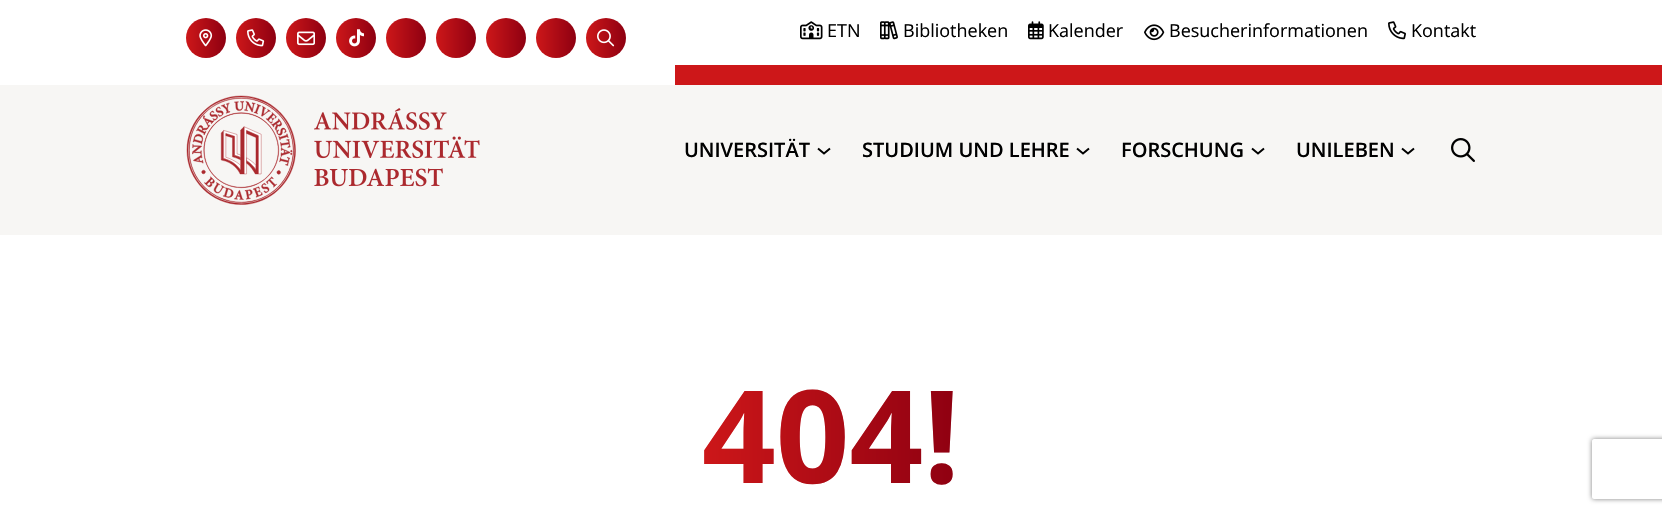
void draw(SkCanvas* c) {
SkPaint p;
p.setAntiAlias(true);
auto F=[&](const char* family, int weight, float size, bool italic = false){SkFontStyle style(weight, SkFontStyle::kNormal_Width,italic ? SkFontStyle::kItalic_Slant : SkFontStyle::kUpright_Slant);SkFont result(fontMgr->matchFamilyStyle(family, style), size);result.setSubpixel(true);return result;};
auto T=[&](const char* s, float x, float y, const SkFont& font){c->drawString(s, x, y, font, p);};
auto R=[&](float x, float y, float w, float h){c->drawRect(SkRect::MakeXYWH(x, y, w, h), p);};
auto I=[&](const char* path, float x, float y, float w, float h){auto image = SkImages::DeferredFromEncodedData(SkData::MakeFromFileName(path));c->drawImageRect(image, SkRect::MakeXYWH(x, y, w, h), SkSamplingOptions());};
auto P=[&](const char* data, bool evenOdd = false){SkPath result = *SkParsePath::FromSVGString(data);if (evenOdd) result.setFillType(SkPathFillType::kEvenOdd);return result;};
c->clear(0xffffffff);
{
const SkColor colors[] = {0xffcd1719,0xff8e0011};
const float stops[] = {0,1};
const SkPoint ends[] = {{186,38}, {226,38}};
p.setShader(SkGradientShader::MakeLinear(ends, colors, stops, 2, SkTileMode::kClamp));
p.setAlpha(255);
}
c->drawCircle(206,38,20,p);
I("1.png",199,29,14,18);
{
const SkColor colors[] = {0xffcd1719,0xff8e0011};
const float stops[] = {0,1};
const SkPoint ends[] = {{236,38}, {276,38}};
p.setShader(SkGradientShader::MakeLinear(ends, colors, stops, 2, SkTileMode::kClamp));
p.setAlpha(255);
}
c->drawCircle(256,38,20,p);
I("2.png",247,29,18,18);
{
const SkColor colors[] = {0xffcd1719,0xff8e0011};
const float stops[] = {0,1};
const SkPoint ends[] = {{286,38}, {326,38}};
p.setShader(SkGradientShader::MakeLinear(ends, colors, stops, 2, SkTileMode::kClamp));
p.setAlpha(255);
}
c->drawCircle(306,38,20,p);
I("3.png",297,31,18,15);
{
const SkColor colors[] = {0xffcd1719,0xff8e0011};
const float stops[] = {0,1};
const SkPoint ends[] = {{336,38}, {376,38}};
p.setShader(SkGradientShader::MakeLinear(ends, colors, stops, 2, SkTileMode::kClamp));
p.setAlpha(255);
}
c->drawCircle(356,38,20,p);
I("4.png",349,29,15,18);
{
const SkColor colors[] = {0xffcd1719,0xff8e0011};
const float stops[] = {0,1};
const SkPoint ends[] = {{386,38}, {426,38}};
p.setShader(SkGradientShader::MakeLinear(ends, colors, stops, 2, SkTileMode::kClamp));
p.setAlpha(255);
}
c->drawCircle(406,38,20,p);
{
const SkColor colors[] = {0xffcd1719,0xff8e0011};
const float stops[] = {0,1};
const SkPoint ends[] = {{436,38}, {476,38}};
p.setShader(SkGradientShader::MakeLinear(ends, colors, stops, 2, SkTileMode::kClamp));
p.setAlpha(255);
}
c->drawCircle(456,38,20,p);
{
const SkColor colors[] = {0xffcd1719,0xff8e0011};
const float stops[] = {0,1};
const SkPoint ends[] = {{486,38}, {526,38}};
p.setShader(SkGradientShader::MakeLinear(ends, colors, stops, 2, SkTileMode::kClamp));
p.setAlpha(255);
}
c->drawCircle(506,38,20,p);
{
const SkColor colors[] = {0xffcd1719,0xff8e0011};
const float stops[] = {0,1};
const SkPoint ends[] = {{536,38}, {576,38}};
p.setShader(SkGradientShader::MakeLinear(ends, colors, stops, 2, SkTileMode::kClamp));
p.setAlpha(255);
}
c->drawCircle(556,38,20,p);
{
const SkColor colors[] = {0xffcd1719,0xff8e0011};
const float stops[] = {0,1};
const SkPoint ends[] = {{586,38}, {626,38}};
p.setShader(SkGradientShader::MakeLinear(ends, colors, stops, 2, SkTileMode::kClamp));
p.setAlpha(255);
}
c->drawCircle(606,38,20,p);
I("5.png",597,29,18,18);
p.setShader(nullptr);
p.setColor(0xffcd1719);
R(675,65,987,20);
I("6.png",800,21,23,19);
auto f1 = F("Open Sans",400,18);
p.setColor(0xff000000);
T("ETN",827,37,f1);
I("7.png",880,21,18,19);
T("Bibliotheken",903,37,f1);
I("8.png",1028,21,16,19);
T("Kalender",1048,37,f1);
I("9.png",1144,24,21,17);
T("Besucherinformationen",1169,37,f1);
I("10.png",1388,21,18,19);
T("Kontakt",1411,37,f1);
p.setColor(0xfff7f6f4);
R(0,85,1662,150);
I("11.png",186,95,110,110);
I("12.png",314,108,166,79);
auto f2 = F("Open Sans",600,20);
p.setColor(0xff000000);
T("UNIVERSITÄT",684,157,f2);
p.setStroke(true);
p.setStrokeWidth(2);
c->drawPath(P("M818 148.5l6 5l6-5"),p);
p.setStroke(false);
T("STUDIUM UND LEHRE",862,157,f2);
p.setStroke(true);
c->drawPath(P("M1077 148.5l6 5l6-5"),p);
p.setStroke(false);
T("FORSCHUNG",1121,157,f2);
p.setStroke(true);
c->drawPath(P("M1252 148.5l6 5l6-5"),p);
p.setStroke(false);
T("UNILEBEN",1296,157,f2);
p.setStroke(true);
c->drawPath(P("M1402 148.5l6 5l6-5"),p);
I("13.png",1451,138,24,24);
auto f3 = F("Open Sans",700,129);
p.setStroke(false);
{
const SkColor colors[] = {0xffcd1719,0xff8e0011};
const float stops[] = {0,1};
const SkPoint ends[] = {{702,433}, {960,433}};
p.setShader(SkGradientShader::MakeLinear(ends, colors, stops, 2, SkTileMode::kClamp));
p.setAlpha(255);
}
T("404!",702,483,f3);
c->save();
c->clipPath(P("M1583 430h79v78h-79zm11 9h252c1 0 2 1 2 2v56c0 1-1 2-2 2h-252c-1 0-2-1-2-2v-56c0-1 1-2 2-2z",true),true);
p.setShader(nullptr);
p.setColor(0xff808080);
p.setMaskFilter(SkMaskFilter::MakeBlur(kNormal_SkBlurStyle, 2.5));
c->drawRoundRect(SkRect::MakeXYWH(1592,439,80,60),2,2,p);
p.setMaskFilter(nullptr);
c->restore();
}
